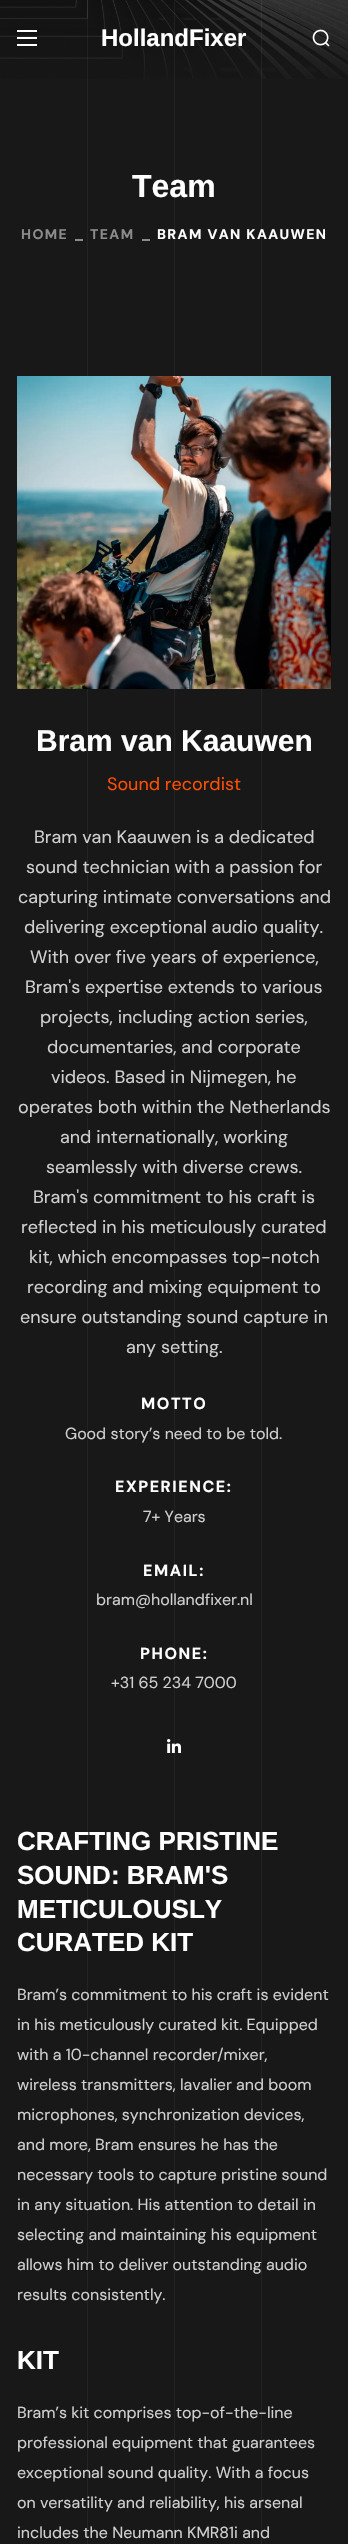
void draw(SkCanvas* c) {
SkPaint p;
p.setAntiAlias(true);
auto F=[&](const char* family, int weight, float size, bool italic = false){SkFontStyle style(weight, SkFontStyle::kNormal_Width,italic ? SkFontStyle::kItalic_Slant : SkFontStyle::kUpright_Slant);SkFont result(fontMgr->matchFamilyStyle(family, style), size);result.setSubpixel(true);return result;};
auto T=[&](const char* s, float x, float y, const SkFont& font){c->drawString(s, x, y, font, p);};
auto L=[&](const char* s, float x, float y, const SkFont& font, const SkPaint& ink, float letter, float word){std::vector<SkGlyphID> glyphs(font.countText(s, strlen(s), SkTextEncoding::kUTF8));std::vector<float> xs(glyphs.size());font.textToGlyphs(s, strlen(s), SkTextEncoding::kUTF8, glyphs);font.getXPos(glyphs, xs, x);float extra = 0;for (size_t i = 0; i < glyphs.size(); i++) {xs[i] += extra;extra += letter + word * (glyphs[i] == font.unicharToGlyph(' '));}c->drawTextBlob(SkTextBlob::MakeFromPosHGlyphs(glyphs, xs, y, font), 0, 0, ink);};
auto R=[&](float x, float y, float w, float h){c->drawRect(SkRect::MakeXYWH(x, y, w, h), p);};
auto I=[&](const char* path, float x, float y, float w, float h){auto image = SkImages::DeferredFromEncodedData(SkData::MakeFromFileName(path));c->drawImageRect(image, SkRect::MakeXYWH(x, y, w, h), SkSamplingOptions());};
c->clear(0xff181818);
I("1.png",0,0,348,79);
p.setColor(0x0dffffff);
R(87,0,1,2544);
R(174,0,1,2544);
R(261,0,1,2544);
p.setColor(0xffffffff);
R(17,30,20,2);
R(17,37,20,2);
R(17,44,20,2);
auto f1 = F("Arimo",700,24);
T("HollandFixer",101,46,f1);
I("2.png",312,29,18,18);
auto f2 = F("Arimo",700,32);
T("Team",132,197,f2);
auto f3 = F("DM Sans",700,14);
p.setColor(0xff8c8c8c);
L("HOME",21,239,f3,p,1.4,0);
R(75,239,8,2);
L("TEAM",90,239,f3,p,1.4,0);
R(142,239,8,2);
p.setColor(0xffffffff);
L("BRAM VAN KAAUWEN",157,239,f3,p,1.4,0);
I("3.png",17,376,314,313);
auto f4 = F("Arimo",700,30);
T("Bram van Kaauwen",36,751,f4);
auto f5 = F("DM Sans",400,18);
p.setColor(0xffff4f00);
T("Sound recordist",107,790,f5);
p.setColor(0xffd0d0d0);
T("Bram van Kaauwen is a dedicated",34,843,f5);
T("sound technician with a passion for",26,873,f5);
T("capturing intimate conversations and",18,903,f5);
T("delivering exceptional audio quality.",24,933,f5);
T("With over five years of experience,",30,963,f5);
T("Bram's expertise extends to various",25,993,f5);
T("projects, including action series,",40,1023,f5);
T("documentaries, and corporate",47,1053,f5);
T("videos. Based in Nijmegen, he",51,1083,f5);
T("operates both within the Netherlands",18,1113,f5);
T("and internationally, working",60,1143,f5);
T("seamlessly with diverse crews.",46,1173,f5);
T("Bram's commitment to his craft is",33,1203,f5);
T("reflected in his meticulously curated",21,1233,f5);
T("kit, which encompasses top-notch",29,1263,f5);
T("recording and mixing equipment to",27,1293,f5);
T("ensure outstanding sound capture in",20,1323,f5);
T("any setting.",126,1353,f5);
auto f6 = F("DM Sans",700,16);
p.setColor(0xffffffff);
L("MOTTO",141,1409,f6,p,1.6,0);
auto f7 = F("DM Sans",400,16);
p.setColor(0xffd0d0d0);
T("Good story’s need to be told.",65,1439,f7);
p.setColor(0xffffffff);
L("EXPERIENCE:",115,1492,f6,p,1.6,0);
p.setColor(0xffd0d0d0);
T("7+ Years",143,1522,f7);
p.setColor(0xffffffff);
L("EMAIL:",143,1576,f6,p,1.6,0);
p.setColor(0xffd0d0d0);
T("bram@hollandfixer.nl",96,1605,f7);
p.setColor(0xffffffff);
L("PHONE:",140,1659,f6,p,1.6,0);
p.setColor(0xffd0d0d0);
T("+31 65 234 7000",111,1688,f7);
I("4.png",167,1739,14,14);
auto f8 = F("Arimo",700,26);
p.setColor(0xffffffff);
T("CRAFTING PRISTINE",17,1850,f8);
T("SOUND: BRAM'S",17,1884,f8);
T("METICULOUSLY",17,1918,f8);
T("CURATED KIT",17,1951,f8);
p.setColor(0xffd0d0d0);
T("Bram’s commitment to his craft is evident",17,2000,f7);
T("in his meticulously curated kit. Equipped",17,2030,f7);
T("with a 10-channel recorder/mixer,",17,2060,f7);
T("wireless transmitters, lavalier and boom",17,2090,f7);
T("microphones, synchronization devices,",17,2120,f7);
T("and more, Bram ensures he has the",17,2150,f7);
T("necessary tools to capture pristine sound",17,2180,f7);
T("in any situation. His attention to detail in",17,2210,f7);
T("selecting and maintaining his equipment",17,2240,f7);
T("allows him to deliver outstanding audio",17,2270,f7);
T("results consistently.",17,2300,f7);
p.setColor(0xffffffff);
T("KIT",17,2369,f8);
p.setColor(0xffd0d0d0);
T("Bram’s kit comprises top-of-the-line",17,2418,f7);
T("professional equipment that guarantees",17,2448,f7);
T("exceptional sound quality. With a focus",17,2478,f7);
T("on versatility and reliability, his arsenal",17,2508,f7);
T("includes the Neumann KMR81i and",17,2538,f7);
}
